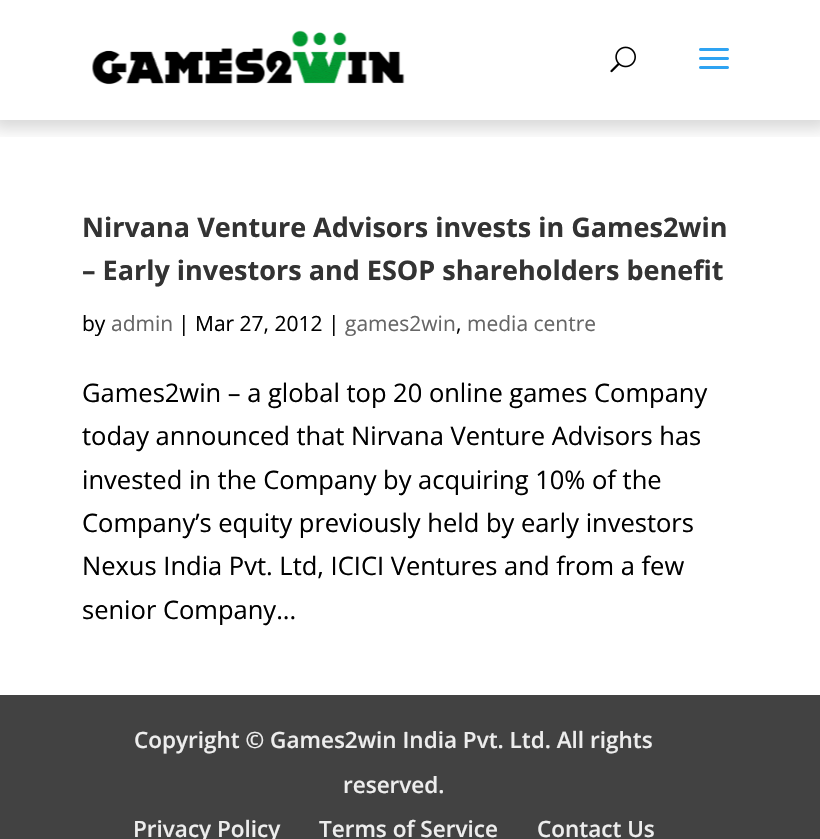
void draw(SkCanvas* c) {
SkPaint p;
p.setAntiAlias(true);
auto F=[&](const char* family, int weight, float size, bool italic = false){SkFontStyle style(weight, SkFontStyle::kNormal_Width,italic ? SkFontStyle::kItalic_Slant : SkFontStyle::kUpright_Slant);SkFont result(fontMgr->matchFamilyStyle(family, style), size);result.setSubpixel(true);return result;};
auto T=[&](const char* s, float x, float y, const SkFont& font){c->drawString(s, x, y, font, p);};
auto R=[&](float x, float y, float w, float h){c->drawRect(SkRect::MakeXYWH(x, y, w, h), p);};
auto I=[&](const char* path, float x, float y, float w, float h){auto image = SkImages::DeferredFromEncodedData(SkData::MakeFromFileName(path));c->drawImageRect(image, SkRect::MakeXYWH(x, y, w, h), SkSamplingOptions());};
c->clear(0xffffffff);
c->save();
c->clipRect(SkRect::MakeXYWH(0,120,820,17));
p.setColor(0x26000000);
p.setMaskFilter(SkMaskFilter::MakeBlur(kNormal_SkBlurStyle, 7.5));
c->drawRect(SkRect::MakeXYWH(-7,-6,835,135),p);
p.setMaskFilter(nullptr);
c->restore();
I("1.png",92,30,313,55);
I("2.png",610,46,26,27);
I("3.png",699,48,30,21);
auto f1 = F("Open Sans",700,27);
p.setColor(0xff333333);
T("Nirvana Venture Advisors invests in Games2win",82,237,f1);
T("– Early investors and ESOP shareholders benefit",82,280,f1);
auto f2 = F("Open Sans",400,21);
p.setColor(0xff000000);
T("by",82,331,f2);
p.setColor(0xff666666);
T("admin",111,331,f2);
p.setColor(0xff000000);
T("| Mar 27, 2012 |",178,331,f2);
p.setColor(0xff666666);
T("games2win",345,331,f2);
p.setColor(0xff000000);
T(",",456,331,f2);
p.setColor(0xff666666);
T("media centre",467,331,f2);
auto f3 = F("Open Sans",400,25.5);
p.setColor(0xff000000);
T("Games2win – a global top 20 online games Company",82,402,f3);
T("today announced that Nirvana Venture Advisors has",82,445,f3);
T("invested in the Company by acquiring 10% of the",82,489,f3);
T("Company’s equity previously held by early investors",82,532,f3);
T("Nexus India Pvt. Ltd, ICICI Ventures and from a few",82,575,f3);
T("senior Company...",82,619,f3);
p.setColor(0xff424242);
R(0,695,820,144);
auto f4 = F("Open Sans",600,22.5);
p.setColor(0xffededed);
T("Copyright © Games2win India Pvt. Ltd. All rights",134,748,f4);
T("reserved.",343,793,f4);
T("Privacy Policy",133,837,f4);
T("Terms of Service",319,837,f4);
T("Contact Us",537,837,f4);
}
